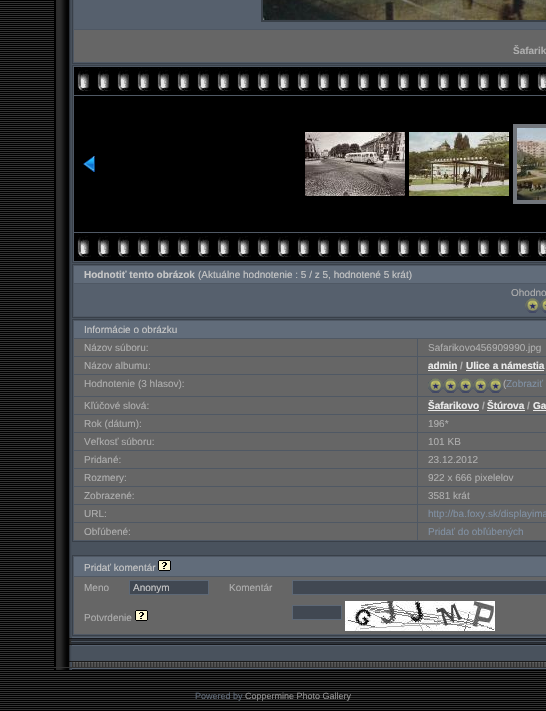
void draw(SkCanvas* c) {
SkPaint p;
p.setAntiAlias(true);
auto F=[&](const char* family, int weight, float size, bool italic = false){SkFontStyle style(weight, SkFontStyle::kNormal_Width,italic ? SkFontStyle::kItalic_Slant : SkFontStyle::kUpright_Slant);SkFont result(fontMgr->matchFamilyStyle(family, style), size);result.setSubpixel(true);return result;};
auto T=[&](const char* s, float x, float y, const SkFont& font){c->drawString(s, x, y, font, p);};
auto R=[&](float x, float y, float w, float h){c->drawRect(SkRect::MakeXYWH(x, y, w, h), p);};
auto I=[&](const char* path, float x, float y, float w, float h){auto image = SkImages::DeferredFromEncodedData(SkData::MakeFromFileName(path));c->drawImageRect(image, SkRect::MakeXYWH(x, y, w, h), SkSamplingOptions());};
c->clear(0xff000000);
I("1.png",0,1,546,709);
I("2.png",54,0,18,637);
p.setColor(0xff49525d);
R(72,64,474,573);
p.setColor(0xff4f5864);
c->drawRect(SkRect::MakeXYWH(72.5,-.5,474,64),p);
p.setStroke(true);
p.setStrokeWidth(1);
p.setColor(0xff394049);
c->drawRect(SkRect::MakeXYWH(72.5,-.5,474,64),p);
p.setStroke(false);
p.setColor(0xff56606d);
R(74,0,472,29);
p.setStroke(true);
p.setStrokeWidth(2);
p.setColor(0xff394048);
c->drawRect(SkRect::MakeXYWH(262,-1,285,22),p);
I("3.png",263,0,283,20);
p.setStroke(false);
p.setColor(0xff666666);
R(74,30,472,32);
auto f1 = F("Liberation Sans",700,10);
p.setColor(0xffaeaeae);
T("Šafarik",513,54,f1);
p.setColor(0xff4f5864);
c->drawRect(SkRect::MakeXYWH(72.5,65.5,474,197),p);
p.setStroke(true);
p.setStrokeWidth(1);
p.setColor(0xff394049);
c->drawRect(SkRect::MakeXYWH(72.5,65.5,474,197),p);
p.setStroke(false);
p.setColor(0xff000000);
R(74,67,472,28);
I("4.png",77,67,469,24);
R(74,96,472,136);
I("5.png",83,156,12,16);
I("6.png",305,132,100,64);
I("7.png",409,132,100,64);
p.setStroke(true);
p.setStrokeWidth(4);
p.setColor(0xff72767c);
c->drawRect(SkRect::MakeXYWH(515,126,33,76),p);
I("8.png",517,128,29,72);
p.setStroke(false);
p.setColor(0xff000000);
R(74,233,472,28);
I("4.png",77,233,469,24);
p.setColor(0xff4f5864);
c->drawRect(SkRect::MakeXYWH(72.5,264.5,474,53),p);
p.setStroke(true);
p.setStrokeWidth(1);
p.setColor(0xff394049);
c->drawRect(SkRect::MakeXYWH(72.5,264.5,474,53),p);
p.setStroke(false);
p.setColor(0xff616c7a);
R(74,266,472,17);
p.setColor(0xffc7c7c7);
T("Hodnotiť tento obrázok",84,278,f1);
auto f2 = F("Liberation Sans",400,10);
T("(Aktuálne hodnotenie : 5 / z 5, hodnotené 5 krát)",198,278,f2);
p.setColor(0xff56606d);
R(74,284,472,32);
p.setColor(0xffaeaeae);
T("Ohodno",511,296,f2);
I("9.png",525,298,15,15);
I("10.png",540,298,6,15);
p.setColor(0xff4f5864);
c->drawRect(SkRect::MakeXYWH(72.5,319.5,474,222),p);
p.setStroke(true);
p.setColor(0xff394049);
c->drawRect(SkRect::MakeXYWH(72.5,319.5,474,222),p);
p.setStroke(false);
p.setColor(0xff616c7a);
R(74,321,472,17);
p.setColor(0xffc7c7c7);
T("Informácie o obrázku",84,333,f2);
p.setColor(0xff666666);
R(74,339,343,17);
p.setColor(0xffaeaeae);
T("Názov súboru:",84,351,f2);
p.setColor(0xff666666);
R(418,339,128,17);
p.setColor(0xffaeaeae);
T("Safarikovo456909990.jpg",428,351,f2);
p.setColor(0xff666666);
R(74,357,343,17);
p.setColor(0xffaeaeae);
T("Názov albumu:",84,369,f2);
p.setColor(0xff666666);
R(418,357,128,17);
p.setColor(0xffeaeaea);
T("admin",428,369,f1);
R(428,370,29,1);
p.setColor(0xffaeaeae);
T("/",460,369,f1);
p.setColor(0xffeaeaea);
T("Ulice a námestia",466,369,f1);
R(466,370,78,1);
p.setColor(0xff666666);
R(74,375,343,21);
p.setColor(0xffaeaeae);
T("Hodnotenie (3 hlasov):",84,387,f2);
p.setColor(0xff666666);
R(418,375,128,21);
I("11.png",428,378,15,15);
I("11.png",443,378,15,15);
I("11.png",458,378,15,15);
I("11.png",473,378,15,15);
I("11.png",488,378,15,15);
p.setColor(0xffaeaeae);
T("(",503,387,f2);
p.setColor(0xff8090a3);
T("Zobraziť",506,387,f2);
p.setColor(0xff666666);
R(74,397,343,17);
p.setColor(0xffaeaeae);
T("Kľúčové slová:",84,409,f2);
p.setColor(0xff666666);
R(418,397,128,17);
p.setColor(0xffeaeaea);
T("Šafarikovo",428,409,f1);
R(428,410,51,1);
p.setColor(0xffaeaeae);
T("/",482,409,f1);
p.setColor(0xffeaeaea);
T("Štúrova",487,409,f1);
R(487,410,38,1);
p.setColor(0xffaeaeae);
T("/",527,409,f1);
p.setColor(0xffeaeaea);
T("Ga",533,409,f1);
R(533,410,13,1);
p.setColor(0xff666666);
R(74,415,343,17);
p.setColor(0xffaeaeae);
T("Rok (dátum):",84,427,f2);
p.setColor(0xff666666);
R(418,415,128,17);
p.setColor(0xffaeaeae);
T("196*",428,427,f2);
p.setColor(0xff666666);
R(74,433,343,17);
p.setColor(0xffaeaeae);
T("Veľkosť súboru:",84,445,f2);
p.setColor(0xff666666);
R(418,433,128,17);
p.setColor(0xffaeaeae);
T("101 KB",428,445,f2);
p.setColor(0xff666666);
R(74,451,343,17);
p.setColor(0xffaeaeae);
T("Pridané:",84,463,f2);
p.setColor(0xff666666);
R(418,451,128,17);
p.setColor(0xffaeaeae);
T("23.12.2012",428,463,f2);
p.setColor(0xff666666);
R(74,469,343,17);
p.setColor(0xffaeaeae);
T("Rozmery:",84,481,f2);
p.setColor(0xff666666);
R(418,469,128,17);
p.setColor(0xffaeaeae);
T("922 x 666 pixelelov",428,481,f2);
p.setColor(0xff666666);
R(74,487,343,17);
p.setColor(0xffaeaeae);
T("Zobrazené:",84,499,f2);
p.setColor(0xff666666);
R(418,487,128,17);
p.setColor(0xffaeaeae);
T("3581 krát",428,499,f2);
p.setColor(0xff666666);
R(74,505,343,17);
p.setColor(0xffaeaeae);
T("URL:",84,517,f2);
p.setColor(0xff666666);
R(418,505,128,17);
p.setColor(0xff8090a3);
T("http://ba.foxy.sk/displayima",428,517,f2);
p.setColor(0xff666666);
R(74,523,343,17);
p.setColor(0xffaeaeae);
T("Obľúbené:",84,535,f2);
p.setColor(0xff666666);
R(418,523,128,17);
p.setColor(0xff8090a3);
T("Pridať do obľúbených",428,535,f2);
p.setColor(0xff4f5864);
c->drawRect(SkRect::MakeXYWH(72.5,555.5,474,80),p);
p.setStroke(true);
p.setColor(0xff394049);
c->drawRect(SkRect::MakeXYWH(72.5,555.5,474,80),p);
p.setStroke(false);
p.setColor(0xff616c7a);
R(74,557,472,19);
p.setColor(0xffc7c7c7);
T("Pridať komentár",84,571,f2);
I("12.png",158,560,13,11);
p.setColor(0xff666666);
R(74,577,472,21);
p.setColor(0xffaeaeae);
T("Meno",84,591,f2);
p.setColor(0xff414852);
c->drawRect(SkRect::MakeXYWH(129.5,580.5,79,14),p);
p.setStroke(true);
p.setColor(0xff5d6876);
c->drawRect(SkRect::MakeXYWH(129.5,580.5,79,14),p);
p.setStroke(false);
p.setColor(0xffc7c7c7);
T("Anonym",133,591,f2);
p.setColor(0xffaeaeae);
T("Komentár",229,591,f2);
p.setColor(0xff414852);
c->drawRect(SkRect::MakeXYWH(292.5,580.5,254,14),p);
p.setStroke(true);
p.setColor(0xff5d6876);
c->drawRect(SkRect::MakeXYWH(292.5,580.5,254,14),p);
p.setStroke(false);
p.setColor(0xff666666);
R(74,598,472,36);
p.setColor(0xffaeaeae);
T("Potvrdenie",84,621,f2);
I("13.png",135,610,13,11);
p.setColor(0xff414852);
c->drawRect(SkRect::MakeXYWH(292.5,605.5,49,14),p);
p.setStroke(true);
p.setColor(0xff5d6876);
c->drawRect(SkRect::MakeXYWH(292.5,605.5,49,14),p);
I("14.png",345,601,150,30);
I("15.png",54,668,18,2);
I("16.png",54,637,18,31);
I("17.png",72,637,474,33);
auto f3 = F("Liberation Sans",400,9);
p.setStroke(false);
p.setColor(0xff616c7a);
T("Powered by",195,699,f3);
p.setColor(0xff949494);
T("Coppermine Photo Gallery",245,699,f3);
}
